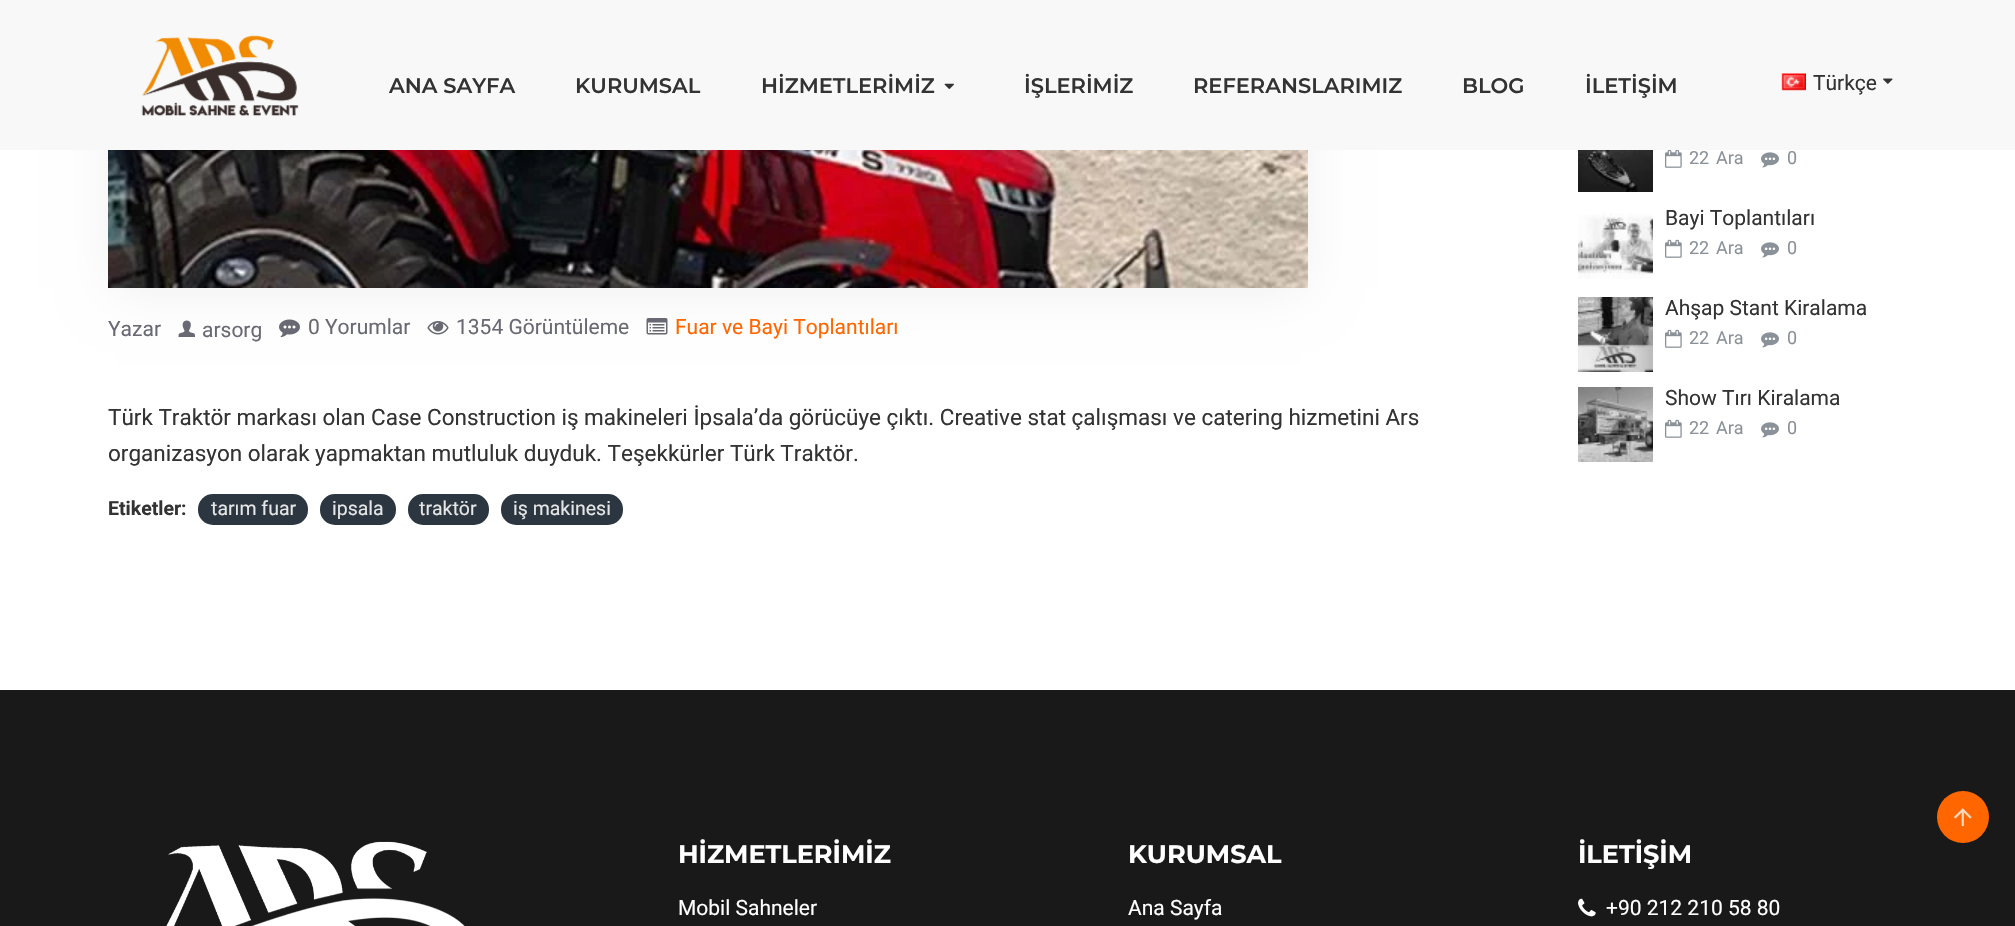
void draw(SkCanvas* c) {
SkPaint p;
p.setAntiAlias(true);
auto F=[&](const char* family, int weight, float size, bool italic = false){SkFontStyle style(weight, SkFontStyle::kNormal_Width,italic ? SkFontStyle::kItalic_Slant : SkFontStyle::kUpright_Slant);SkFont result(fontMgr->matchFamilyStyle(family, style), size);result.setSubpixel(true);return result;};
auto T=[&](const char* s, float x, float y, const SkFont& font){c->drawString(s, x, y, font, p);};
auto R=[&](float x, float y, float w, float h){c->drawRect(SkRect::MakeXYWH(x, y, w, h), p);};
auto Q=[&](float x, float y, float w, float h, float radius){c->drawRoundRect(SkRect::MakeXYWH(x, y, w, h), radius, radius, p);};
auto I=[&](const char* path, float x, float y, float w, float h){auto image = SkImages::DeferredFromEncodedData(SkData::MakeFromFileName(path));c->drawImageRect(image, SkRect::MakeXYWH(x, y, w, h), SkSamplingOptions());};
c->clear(0xffffffff);
p.setColor(0x12000000);
p.setMaskFilter(SkMaskFilter::MakeBlur(kNormal_SkBlurStyle, 26));
c->drawRect(SkRect::MakeXYWH(116,-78,1185,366),p);
p.setMaskFilter(nullptr);
p.setColor(0xfff8f8f8);
R(0,0,2015,150);
I("1.png",141,35,158,82);
auto f1 = F("Montserrat",600,21);
p.setColor(0xff333333);
T("ANA SAYFA",389,93,f1);
T("KURUMSAL",575,93,f1);
T("HİZMETLERİMİZ",761,93,f1);
I("2.png",944,83,10,6);
T("İŞLERİMİZ",1024,93,f1);
T("REFERANSLARIMIZ",1193,93,f1);
T("BLOG",1462,93,f1);
T("İLETİŞİM",1585,93,f1);
I("3.png",1781,73,25,18);
auto f2 = F("Roboto",400,21);
T("Türkçe",1813,90,f2);
I("4.png",1883,78,10,6);
I("5.png",108,150,1200,138);
p.setColor(0xff696973);
T("Yazar",108,336,f2);
I("6.png",178,320,17,17);
T("arsorg",202,337,f2);
I("7.png",279,319,21,19);
T("0 Yorumlar",308,334,f2);
I("8.png",427,321,22,14);
T("1354 Görüntüleme",456,334,f2);
I("9.png",646,318,22,17);
p.setColor(0xffff6600);
T("Fuar ve Bayi Toplantıları",675,334,f2);
auto f3 = F("Roboto",400,22.5);
p.setColor(0xff333333);
T("Türk Traktör markası olan Case Construction iş makineleri İpsala’da görücüye çıktı. Creative stat çalışması ve catering hizmetini Ars",108,425,f3);
T("organizasyon olarak yapmaktan mutluluk duyduk. Teşekkürler Türk Traktör.",108,461,f3);
auto f4 = F("Roboto",700,19.5);
T("Etiketler:",108,515,f4);
p.setColor(0xff2c3640);
Q(198,494,110,31,15);
auto f5 = F("Roboto",400,19.5);
p.setColor(0xffe6e6e6);
T("tarım fuar",211,515,f5);
p.setColor(0xff2c3640);
Q(320,494,76,31,15);
p.setColor(0xffe6e6e6);
T("ipsala",332,515,f5);
p.setColor(0xff2c3640);
Q(408,494,81,31,15);
p.setColor(0xffe6e6e6);
T("traktör",419,515,f5);
p.setColor(0xff2c3640);
Q(501,494,122,31,15);
p.setColor(0xffe6e6e6);
T("iş makinesi",513,515,f5);
I("10.png",1578,150,75,42);
I("11.png",1665,150,17,18);
auto f6 = F("Roboto",400,18);
p.setColor(0xff8b9198);
T("22",1689,164,f6);
T("Ara",1716,164,f6);
I("12.png",1761,152,18,16);
T("0",1787,164,f6);
I("13.png",1578,213,75,66);
p.setColor(0xff333333);
T("Bayi Toplantıları",1665,225,f2);
I("14.png",1665,239,17,19);
p.setColor(0xff8b9198);
T("22",1689,254,f6);
T("Ara",1716,254,f6);
I("12.png",1761,242,18,16);
T("0",1787,254,f6);
I("15.png",1578,297,75,75);
p.setColor(0xff333333);
T("Ahşap Stant Kiralama",1665,315,f2);
I("14.png",1665,329,17,19);
p.setColor(0xff8b9198);
T("22",1689,344,f6);
T("Ara",1716,344,f6);
I("12.png",1761,332,18,16);
T("0",1787,344,f6);
I("16.png",1578,387,75,75);
p.setColor(0xff333333);
T("Show Tırı Kiralama",1665,405,f2);
I("14.png",1665,419,17,19);
p.setColor(0xff8b9198);
T("22",1689,434,f6);
T("Ara",1716,434,f6);
I("12.png",1761,422,18,16);
T("0",1787,434,f6);
p.setColor(0xff191919);
R(0,690,2015,236);
I("17.png",166,841,299,85);
auto f7 = F("Montserrat",700,25.5);
p.setColor(0xffffffff);
T("HİZMETLERİMİZ",678,863,f7);
T("Mobil Sahneler",678,915,f2);
T("KURUMSAL",1128,863,f7);
T("Ana Sayfa",1128,915,f2);
T("İLETİŞİM",1578,863,f7);
I("18.png",1578,898,18,19);
T("+90 212 210 58 80",1606,915,f2);
p.setColor(0xffff6600);
c->drawCircle(1963,817,26,p);
I("19.png",1954,808,18,19);
}
